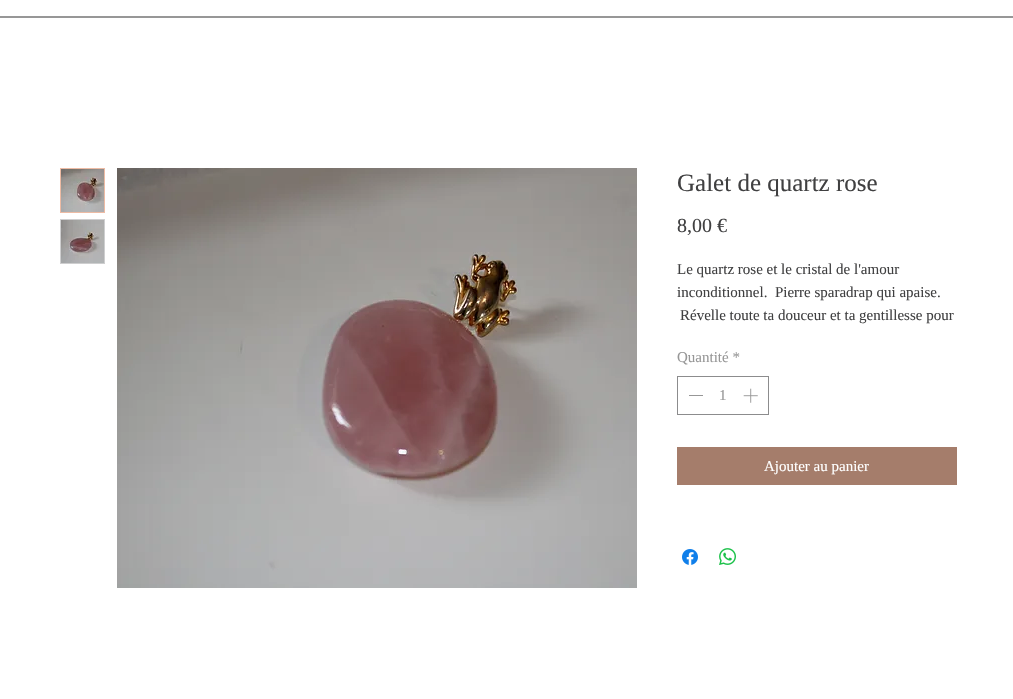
void draw(SkCanvas* c) {
SkPaint p;
p.setAntiAlias(true);
auto F=[&](const char* family, int weight, float size, bool italic = false){SkFontStyle style(weight, SkFontStyle::kNormal_Width,italic ? SkFontStyle::kItalic_Slant : SkFontStyle::kUpright_Slant);SkFont result(fontMgr->matchFamilyStyle(family, style), size);result.setSubpixel(true);return result;};
auto T=[&](const char* s, float x, float y, const SkFont& font){c->drawString(s, x, y, font, p);};
auto R=[&](float x, float y, float w, float h){c->drawRect(SkRect::MakeXYWH(x, y, w, h), p);};
auto I=[&](const char* path, float x, float y, float w, float h){auto image = SkImages::DeferredFromEncodedData(SkData::MakeFromFileName(path));c->drawImageRect(image, SkRect::MakeXYWH(x, y, w, h), SkSamplingOptions());};
c->clear(0xffffffff);
p.setColor(0xff979797);
R(0,16,1013,2);
p.setStroke(true);
p.setStrokeWidth(1);
p.setColor(0xffedbba4);
c->drawRect(SkRect::MakeXYWH(60.5,168.5,44,44),p);
I("1.png",61,169,43,43);
p.setColor(0xffcececf);
c->drawRect(SkRect::MakeXYWH(60.5,219.5,44,44),p);
I("2.png",61,220,43,43);
I("3.png",117,168,520,420);
auto f1 = F("Liberation Serif",400,25);
p.setStroke(false);
p.setColor(0xff404041);
T("Galet de quartz rose",677,191,f1);
auto f2 = F("Liberation Serif",400,20);
T("8,00 €",677,232,f2);
auto f3 = F("Liberation Serif",400,15);
T("Le quartz rose et le cristal de l'amour",677,274,f3);
T("inconditionnel.  Pierre sparadrap qui apaise.",677,297,f3);
T("Révelle toute ta douceur et ta gentillesse pour",680,320,f3);
p.setColor(0xff979797);
T("Quantité *",677,362,f3);
p.setStroke(true);
p.setColor(0xff8c8c8d);
c->drawRect(SkRect::MakeXYWH(677.5,376.5,91,38),p);
p.setStroke(false);
p.setColor(0xff979797);
R(689,395,14,1);
T("1",719,400,f3);
I("4.png",743,388,15,15);
p.setColor(0xffa57d6b);
R(677,447,280,38);
p.setColor(0xffffffff);
T("Ajouter au panier",764,471,f3);
I("5.png",682,549,16,16);
I("6.png",719,548,17,17);
}
